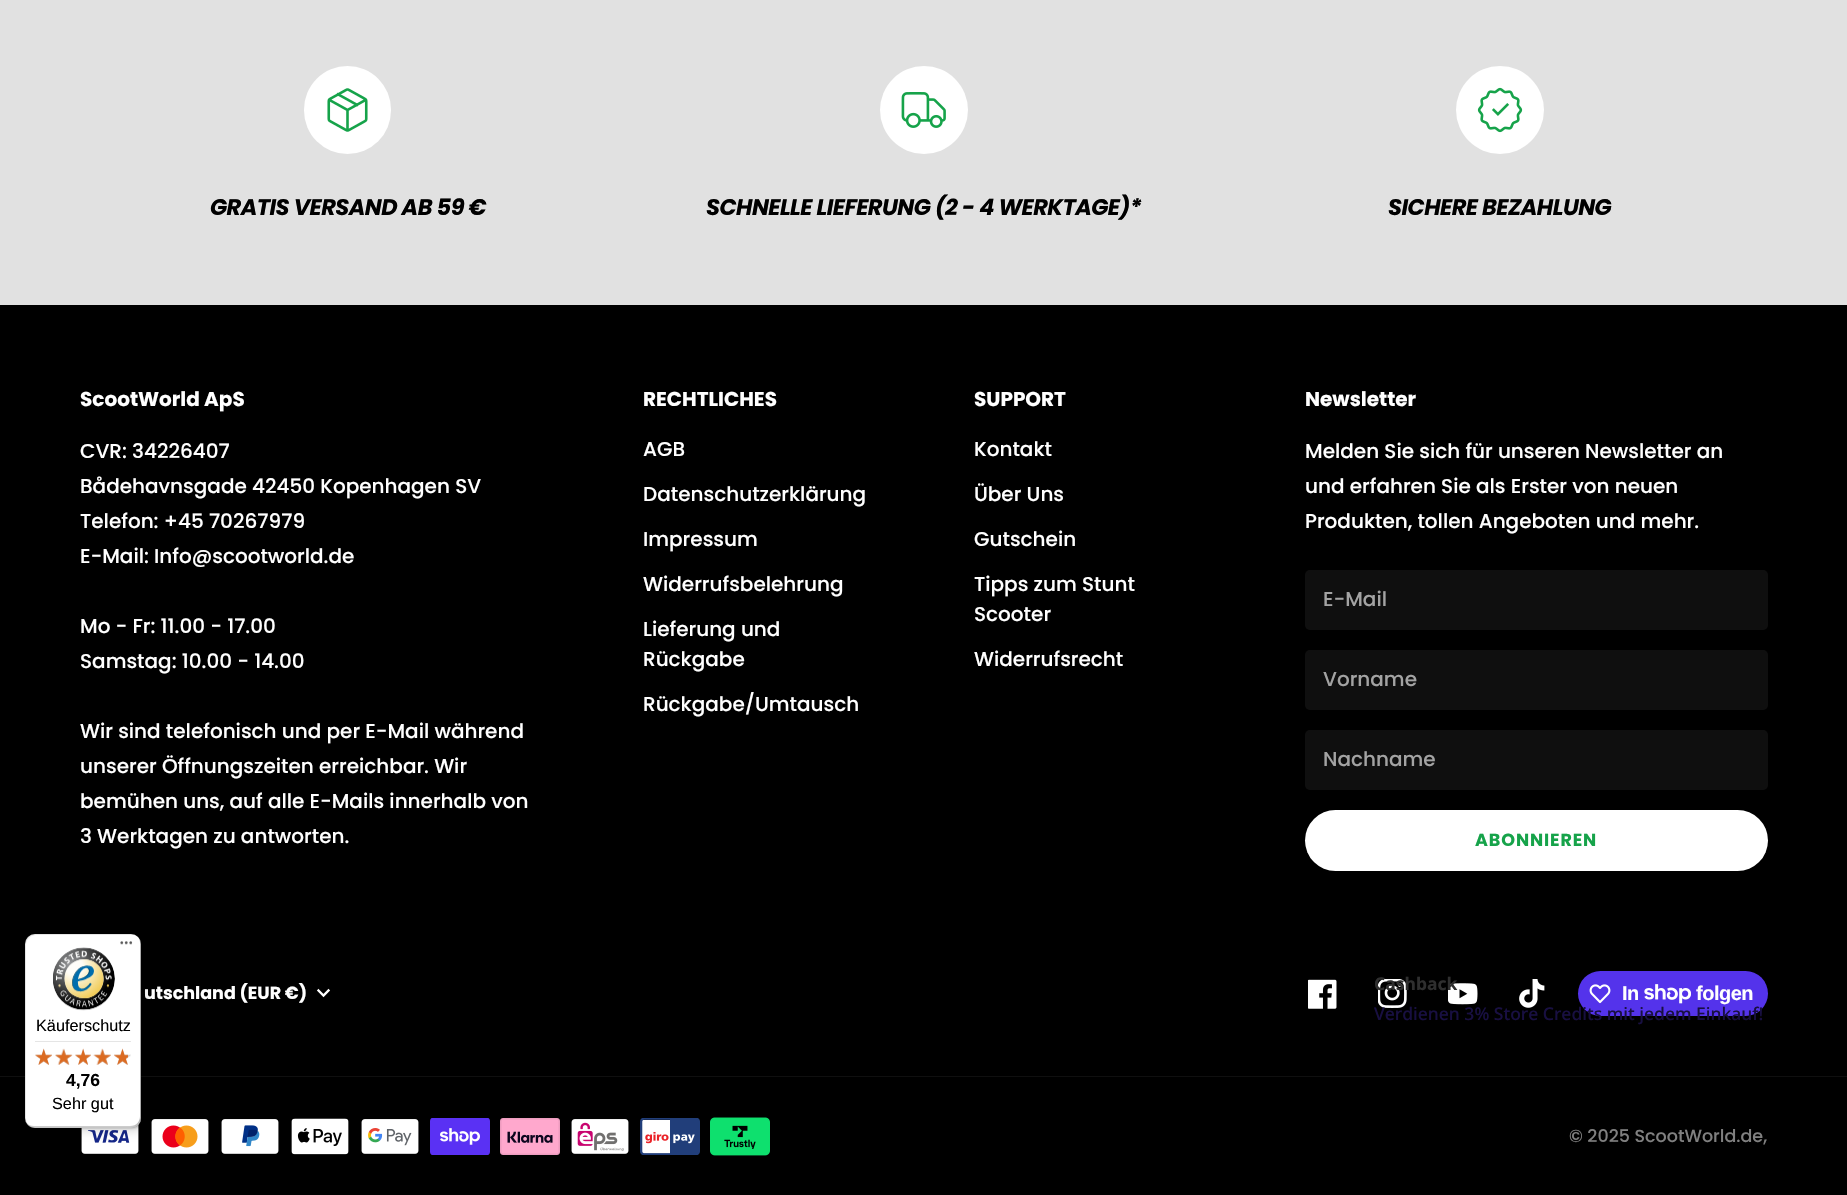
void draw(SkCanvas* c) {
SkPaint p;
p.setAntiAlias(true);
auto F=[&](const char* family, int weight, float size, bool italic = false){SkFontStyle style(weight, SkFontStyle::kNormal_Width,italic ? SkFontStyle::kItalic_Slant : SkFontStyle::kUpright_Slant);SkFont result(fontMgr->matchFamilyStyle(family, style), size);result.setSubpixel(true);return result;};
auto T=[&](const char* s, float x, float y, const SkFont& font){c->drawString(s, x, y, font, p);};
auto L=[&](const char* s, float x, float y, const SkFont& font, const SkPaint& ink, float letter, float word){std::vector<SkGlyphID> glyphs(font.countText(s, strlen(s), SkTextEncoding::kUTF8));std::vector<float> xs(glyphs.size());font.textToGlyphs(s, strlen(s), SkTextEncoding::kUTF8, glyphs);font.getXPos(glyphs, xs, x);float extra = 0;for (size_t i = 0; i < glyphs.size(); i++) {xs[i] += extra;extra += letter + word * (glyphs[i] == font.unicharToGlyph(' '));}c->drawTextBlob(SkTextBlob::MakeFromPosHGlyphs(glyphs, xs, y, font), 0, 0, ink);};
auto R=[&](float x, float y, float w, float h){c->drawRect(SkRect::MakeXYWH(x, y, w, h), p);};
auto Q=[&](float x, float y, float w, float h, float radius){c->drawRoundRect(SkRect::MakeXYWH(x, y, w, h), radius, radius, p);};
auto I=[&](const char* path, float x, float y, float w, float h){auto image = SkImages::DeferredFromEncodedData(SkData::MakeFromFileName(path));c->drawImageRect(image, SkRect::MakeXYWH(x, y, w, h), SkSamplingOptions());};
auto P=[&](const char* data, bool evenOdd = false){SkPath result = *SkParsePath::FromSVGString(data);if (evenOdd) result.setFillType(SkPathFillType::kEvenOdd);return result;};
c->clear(0xffe1e1e1);
p.setColor(0xffffffff);
Q(304,66,87,88,43.5);
I("1.png",327,88,41,44);
auto f1 = F("Poppins",700,22.5,true);
p.setColor(0xff000000);
L("GRATIS VERSAND AB 59 €",210,215,f1,p,-.55,0);
p.setColor(0xffffffff);
c->drawCircle(924,110,44,p);
I("2.png",901,92,45,36);
p.setColor(0xff000000);
L("SCHNELLE LIEFERUNG (2 - 4 WERKTAGE)*",706,215,f1,p,-.55,0);
p.setColor(0xffffffff);
c->drawCircle(1500,110,44,p);
I("3.png",1477,87,46,46);
p.setColor(0xff000000);
L("SICHERE BEZAHLUNG",1388,215,f1,p,-.55,0);
R(0,305,1847,890);
auto f2 = F("Poppins",700,20);
p.setColor(0xffffffff);
T("ScootWorld ApS",80,406,f2);
auto f3 = F("Poppins",500,20);
T("CVR: 34226407",80,458,f3);
T("Bådehavnsgade 42450 Kopenhagen SV",80,493,f3);
T("Telefon: +45 70267979",80,528,f3);
T("E-Mail: Info@scootworld.de",80,563,f3);
T("Mo - Fr: 11.00 - 17.00",80,633,f3);
T("Samstag: 10.00 - 14.00",80,668,f3);
T("Wir sind telefonisch und per E-Mail während",80,738,f3);
T("unserer Öffnungszeiten erreichbar. Wir",80,773,f3);
T("bemühen uns, auf alle E-Mails innerhalb von",80,808,f3);
T("3 Werktagen zu antworten.",80,843,f3);
T("RECHTLICHES",643,406,f2);
T("AGB",643,456,f3);
T("Datenschutzerklärung",643,501,f3);
T("Impressum",643,546,f3);
T("Widerrufsbelehrung",643,591,f3);
T("Lieferung und",643,636,f3);
T("Rückgabe",643,666,f3);
T("Rückgabe/Umtausch",643,711,f3);
T("SUPPORT",974,406,f2);
T("Kontakt",974,456,f3);
T("Über Uns",974,501,f3);
T("Gutschein",974,546,f3);
T("Tipps zum Stunt",974,591,f3);
T("Scooter",974,621,f3);
T("Widerrufsrecht",974,666,f3);
T("Newsletter",1305,406,f2);
T("Melden Sie sich für unseren Newsletter an",1305,458,f3);
T("und erfahren Sie als Erster von neuen",1305,493,f3);
T("Produkten, tollen Angeboten und mehr.",1305,528,f3);
p.setColor(0xff0f0f0f);
Q(1305,570,463,60,5);
p.setColor(0xffa3a3a3);
T("E-Mail",1323,606,f3);
p.setColor(0xff0f0f0f);
Q(1305,650,463,60,5);
p.setColor(0xffa3a3a3);
T("Vorname",1323,686,f3);
p.setColor(0xff0f0f0f);
Q(1305,730,463,60,5);
p.setColor(0xffa3a3a3);
T("Nachname",1323,766,f3);
p.setColor(0xffffffff);
Q(1305,810,463,61,30.5);
auto f4 = F("Poppins",700,17.5);
p.setColor(0xff16a34a);
L("ABONNIEREN",1475,846,f4,p,.9,0);
p.setColor(0xffffffff);
T("utschland (EUR €)",144,999,f4);
p.setStroke(true);
p.setStrokeWidth(2.3);
p.setStrokeCap(SkPaint::kSquare_Cap);
c->drawPath(P("M318.5 990.5l5 5l5-5"),p);
I("4.png",1308,979,29,30);
I("5.png",1378,979,29,29);
I("6.png",1448,983,30,22);
I("7.png",1519,979,26,29);
p.setStroke(false);
p.setColor(0xff5433eb);
Q(1578,971,190,45,22.5);
I("8.png",1589,984,22,20);
auto f5 = F("Liberation Sans",700,20);
p.setColor(0xffffffff);
L("In",1622,1000,f5,p,-.5,0);
I("9.png",1644,984,47,20);
L("folgen",1696,1000,f5,p,-.5,0);
p.setColor(0xff0f0f0f);
R(0,1076,1847,1);
I("10.png",81,1124,58,30);
I("11.png",151,1119,58,35);
I("12.png",221,1119,58,35);
I("13.png",291,1118,58,37);
I("14.png",361,1119,58,35);
I("15.png",430,1118,60,37);
I("16.png",500,1118,60,37);
I("17.png",571,1119,58,35);
I("18.png",640,1118,60,37);
I("19.png",710,1117,60,39);
auto f6 = F("Poppins",500,17.5);
p.setColor(0xff808080);
T("© 2025 ScootWorld.de,",1569,1142,f6);
auto f7 = F("Noto Sans",700,17.5);
p.setColor(0xff2f2f2f);
T("Cashback",1374,990,f7);
auto f8 = F("Noto Sans",500,17.5);
p.setColor(0xff180f42);
T("Verdienen 3% Store Credits mit jedem Einkauf!",1374,1020,f8);
p.setColor(0x26000000);
p.setMaskFilter(SkMaskFilter::MakeBlur(kNormal_SkBlurStyle, 5));
c->drawRoundRect(SkRect::MakeXYWH(29,938,116,193),10,10,p);
p.setMaskFilter(nullptr);
p.setMaskFilter(SkMaskFilter::MakeBlur(kNormal_SkBlurStyle, 1));
c->drawRoundRect(SkRect::MakeXYWH(26,935,117,194),10,10,p);
p.setMaskFilter(nullptr);
p.setColor(0xffffffff);
Q(25,934,116,194,10);
p.setColor(0x1a000000);
c->drawPath(P("M36 935h96c2 0 4 0 5 1c-1-1-4-2-6-2h-96c-6 0-10 4-10 10v174c0 4 2 7 5 9c-2-2-4-5-4-8v-174c0-6 5-10 10-10z"),p);
p.setColor(0x33000000);
c->drawPath(P("M26 1122c2 4 5 6 9 6h96c6 0 10-4 10-10v-174c0-2-1-4-2-6l1 4v174c0 6-4 10-10 10h-96c-3 0-6-1-8-4z"),p);
p.setColor(0x33323232);
c->drawPath(P("M26 1123c2 3 5 5 9 5h96c6 0 10-4 10-10v-174c0-2-1-5-2-6c1 1 1 3 1 5v174c0 5-4 10-10 10h-96c-3 0-6-2-8-4z"),p);
I("20.png",120,941,13,4);
p.setColor(0x4dffffff);
c->drawPath(P("M26 1123c2 3 5 5 9 5h96c6 0 10-4 10-10v-1c0 5-5 10-10 10h-97c-3 0-6-2-8-4z"),p);
I("21.png",53,947,62,64);
auto f9 = F("Liberation Sans",400,16.25);
p.setColor(0xff000000);
T("Käuferschutz",36,1031,f9);
p.setColor(0xffe5e5e5);
R(35,1041,96,1);
I("27.png",35,1049,17,16);
I("22.png",35,1048,17,17);
I("28.png",55,1049,17,16);
I("23.png",55,1048,18,17);
I("29.png",75,1049,16,16);
I("24.png",75,1048,16,17);
I("30.png",93,1049,18,16);
I("25.png",93,1048,18,17);
I("31.png",114,1049,17,16);
I("26.png",114,1048,14,17);
auto f10 = F("Liberation Sans",700,17.5);
p.setColor(0xff000000);
T("4,76",66,1086,f10);
T("Sehr gut",52,1109,f9);
}
